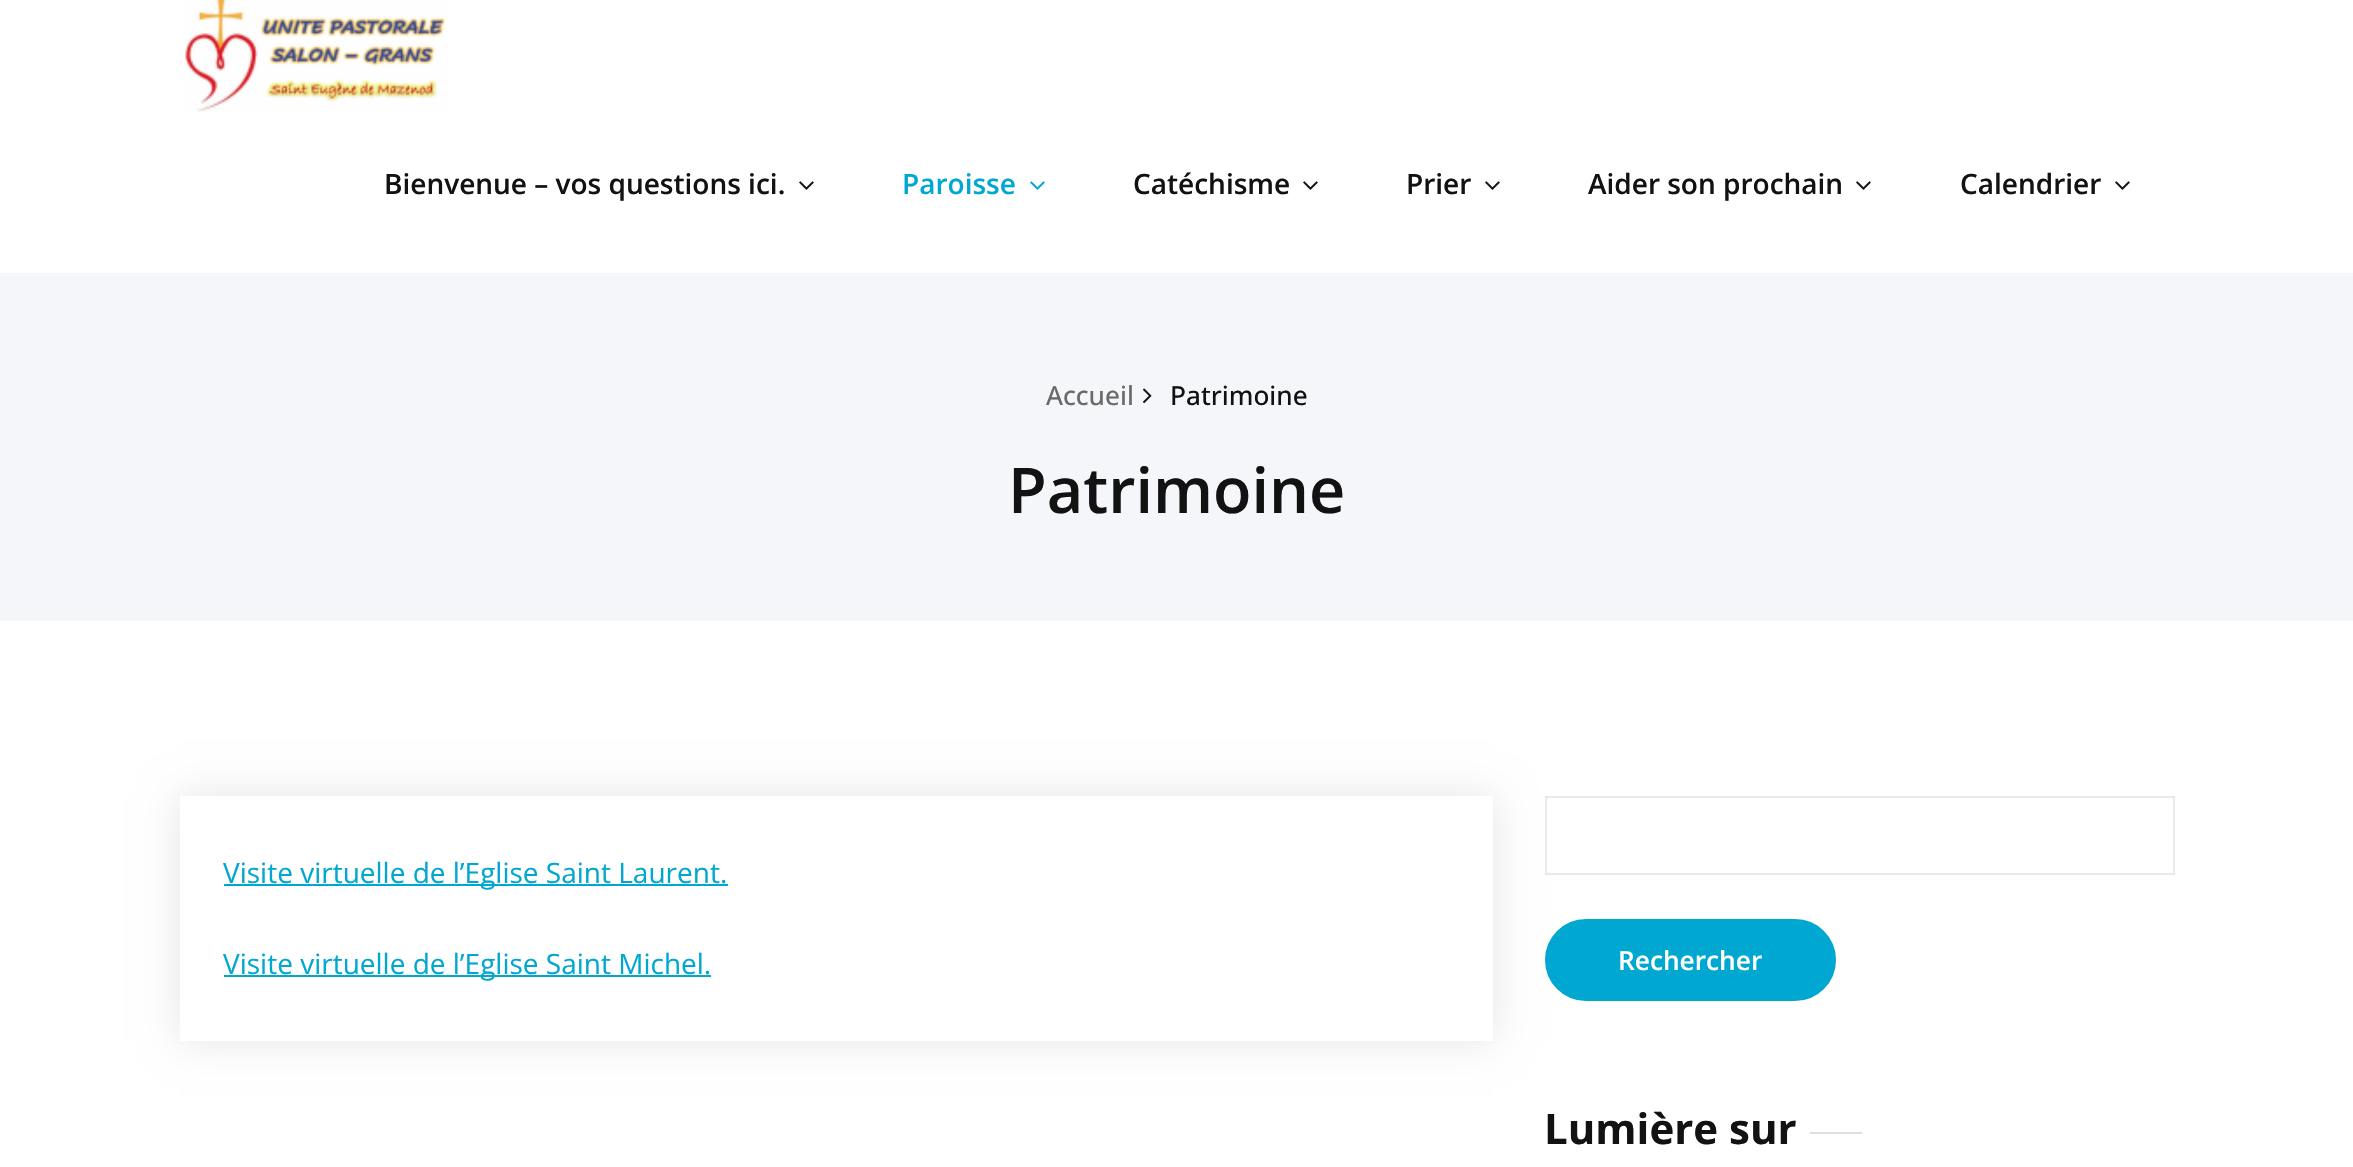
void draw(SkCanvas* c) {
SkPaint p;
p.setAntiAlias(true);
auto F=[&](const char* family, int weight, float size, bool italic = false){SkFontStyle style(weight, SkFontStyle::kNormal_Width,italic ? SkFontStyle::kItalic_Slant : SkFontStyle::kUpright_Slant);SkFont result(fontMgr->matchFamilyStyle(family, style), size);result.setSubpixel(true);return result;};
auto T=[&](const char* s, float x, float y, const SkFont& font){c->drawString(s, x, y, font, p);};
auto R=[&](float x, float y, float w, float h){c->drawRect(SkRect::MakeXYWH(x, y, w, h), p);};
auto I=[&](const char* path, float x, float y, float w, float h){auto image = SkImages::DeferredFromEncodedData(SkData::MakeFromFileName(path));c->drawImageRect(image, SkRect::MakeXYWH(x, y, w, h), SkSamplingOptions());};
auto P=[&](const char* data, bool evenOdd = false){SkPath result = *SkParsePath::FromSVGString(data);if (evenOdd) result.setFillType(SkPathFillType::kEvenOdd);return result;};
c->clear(0xffffffff);
I("1.png",185,0,261,112);
auto f1 = F("Open Sans",600,28);
p.setColor(0xff121212);
T("Bienvenue – vos questions ici.",384,194,f1);
I("2.png",799,181,15,9);
p.setColor(0xff00a7d1);
T("Paroisse",902,194,f1);
I("3.png",1030,181,15,9);
p.setColor(0xff121212);
T("Catéchisme",1133,194,f1);
I("2.png",1303,181,15,9);
T("Prier",1406,194,f1);
I("2.png",1485,181,15,9);
T("Aider son prochain",1588,194,f1);
I("2.png",1856,181,15,9);
T("Calendrier",1960,194,f1);
I("2.png",2115,181,15,9);
p.setColor(0xfff5f6f9);
R(0,273,2353,348);
auto f2 = F("Open Sans",500,26.25);
p.setColor(0xff6a6a6a);
T("Accueil",1046,405,f2);
I("4.png",1143,388,9,16);
p.setColor(0xff121212);
T("Patrimoine",1170,405,f2);
auto f3 = F("Open Sans",600,63);
T("Patrimoine",1008,513,f3);
c->save();
c->clipPath(P("M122 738h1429v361h-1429zm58 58h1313v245h-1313z",true),true);
p.setColor(0x1a000000);
p.setMaskFilter(SkMaskFilter::MakeBlur(kNormal_SkBlurStyle, 19));
c->drawRect(SkRect::MakeXYWH(180,796,1313,245),p);
p.setMaskFilter(nullptr);
c->restore();
p.setColor(0xff00a7d1);
R(224,884,504,2);
auto f4 = F("Open Sans",400,28);
T("Visite virtuelle de l’Eglise Saint Laurent.",223,883,f4);
R(224,975,487,2);
T("Visite virtuelle de l’Eglise Saint Michel.",223,974,f4);
p.setStroke(true);
p.setStrokeWidth(2);
p.setColor(0xffe9e9e9);
c->drawRect(SkRect::MakeXYWH(1546,797,628,77),p);
p.setStroke(false);
p.setColor(0xff00a7d1);
c->drawRoundRect(SkRect::MakeXYWH(1547,921,287,78),39,39,p);
p.setStroke(true);
p.setStrokeWidth(4);
c->drawRoundRect(SkRect::MakeXYWH(1547,921,287,78),39,39,p);
auto f5 = F("Open Sans",600,26.25);
p.setStroke(false);
p.setColor(0xffffffff);
T("Rechercher",1618,970,f5);
auto f6 = F("Open Sans",700,42);
p.setColor(0xff121212);
T("Lumière sur",1544,1144,f6);
p.setColor(0xffdfdfdf);
R(1810,1132,52,2);
}
